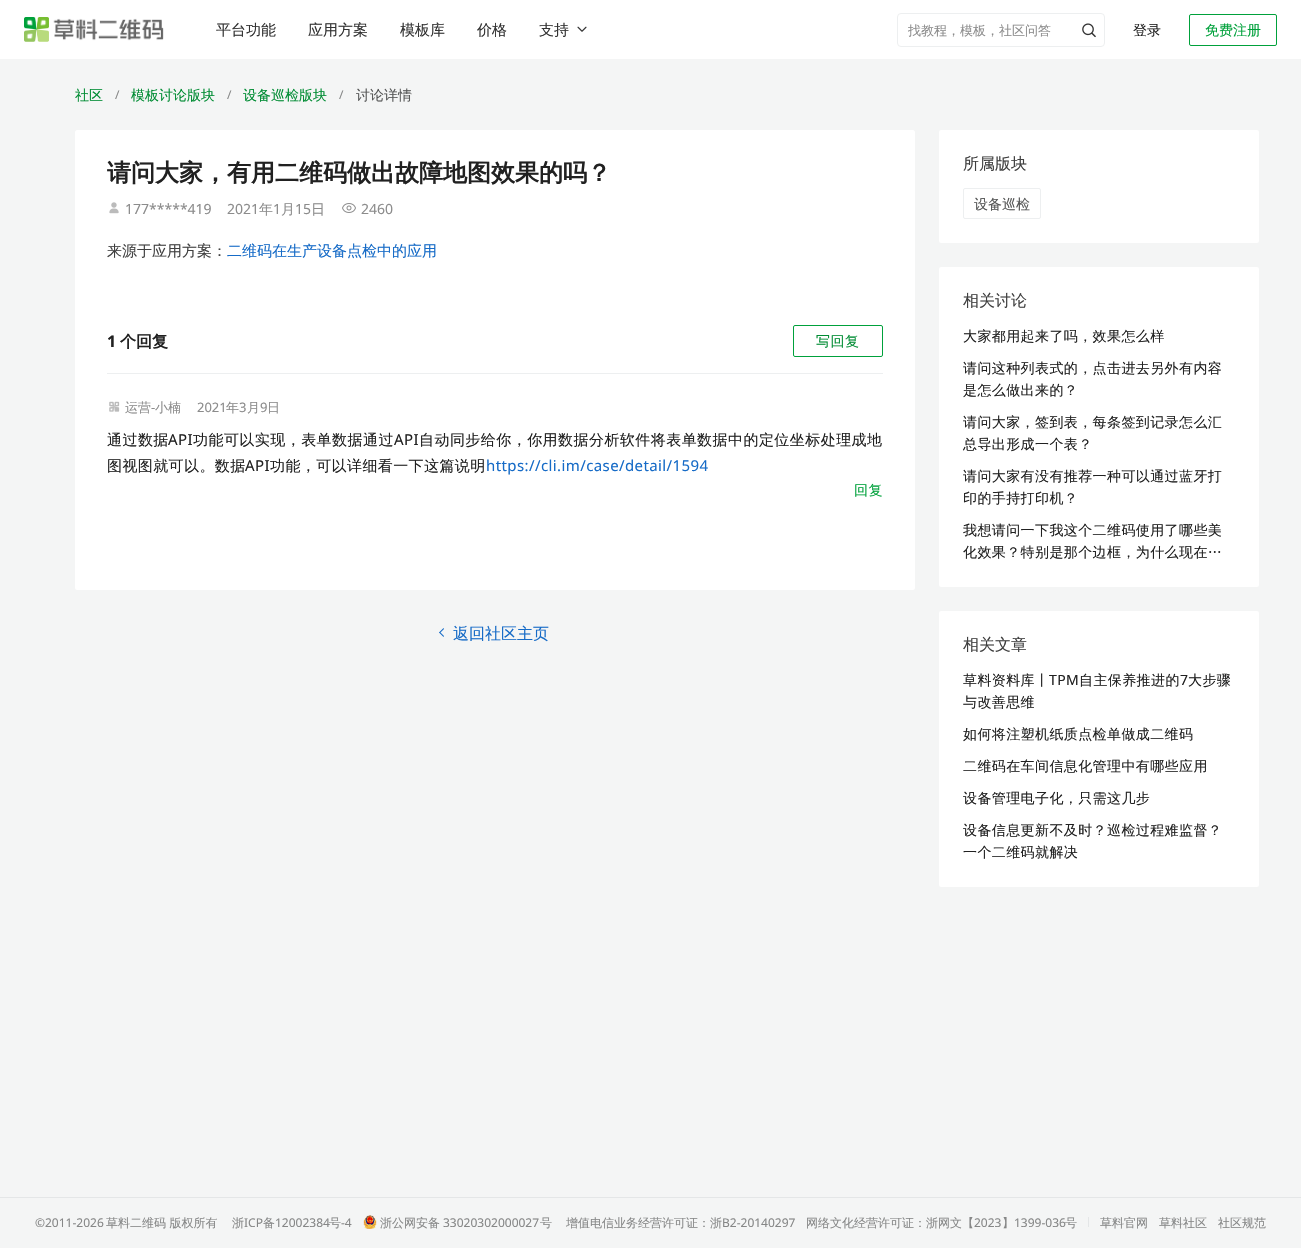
void draw(SkCanvas* c) {
SkPaint p;
p.setAntiAlias(true);
auto F=[&](const char* family, int weight, float size, bool italic = false){SkFontStyle style(weight, SkFontStyle::kNormal_Width,italic ? SkFontStyle::kItalic_Slant : SkFontStyle::kUpright_Slant);SkFont result(fontMgr->matchFamilyStyle(family, style), size);result.setSubpixel(true);return result;};
auto T=[&](const char* s, float x, float y, const SkFont& font){c->drawString(s, x, y, font, p);};
auto L=[&](const char* s, float x, float y, const SkFont& font, const SkPaint& ink, float letter, float word){std::vector<SkGlyphID> glyphs(font.countText(s, strlen(s), SkTextEncoding::kUTF8));std::vector<float> xs(glyphs.size());font.textToGlyphs(s, strlen(s), SkTextEncoding::kUTF8, glyphs);font.getXPos(glyphs, xs, x);float extra = 0;for (size_t i = 0; i < glyphs.size(); i++) {xs[i] += extra;extra += letter + word * (glyphs[i] == font.unicharToGlyph(' '));}c->drawTextBlob(SkTextBlob::MakeFromPosHGlyphs(glyphs, xs, y, font), 0, 0, ink);};
auto R=[&](float x, float y, float w, float h){c->drawRect(SkRect::MakeXYWH(x, y, w, h), p);};
auto Q=[&](float x, float y, float w, float h, float radius){c->drawRoundRect(SkRect::MakeXYWH(x, y, w, h), radius, radius, p);};
auto I=[&](const char* path, float x, float y, float w, float h){auto image = SkImages::DeferredFromEncodedData(SkData::MakeFromFileName(path));c->drawImageRect(image, SkRect::MakeXYWH(x, y, w, h), SkSamplingOptions());};
auto P=[&](const char* data, bool evenOdd = false){SkPath result = *SkParsePath::FromSVGString(data);if (evenOdd) result.setFillType(SkPathFillType::kEvenOdd);return result;};
c->clear(0xfff4f5f5);
p.setColor(0xffffffff);
R(0,0,1301,59);
I("1.png",24,17,140,25);
auto f1 = F("WenQuanYi Zen Hei",500,15);
p.setColor(0xff333333);
T("平台功能",216,35,f1);
T("应用方案",308,35,f1);
T("模板库",400,35,f1);
T("价格",477,35,f1);
T("支持",539,35,f1);
I("2.png",577,26,10,6);
p.setStroke(true);
p.setStrokeWidth(1);
p.setColor(0xffedeff0);
c->drawRoundRect(SkRect::MakeXYWH(897.5,13.5,207,33),3.5,3.5,p);
auto f2 = F("WenQuanYi Zen Hei",500,13);
p.setStroke(false);
p.setColor(0xff8c8c8c);
T("找教程，模板，社区问答",908,35,f2);
I("3.png",1082,23,14,15);
auto f3 = F("WenQuanYi Zen Hei",500,14);
p.setColor(0xff212121);
T("登录",1133,35,f3);
p.setStroke(true);
p.setColor(0xff00a13b);
c->drawRoundRect(SkRect::MakeXYWH(1189.5,14.5,87,31),1.5,1.5,p);
p.setStroke(false);
T("免费注册",1205,35,f3);
p.setColor(0xff008c33);
T("社区",75,100,f3);
auto f4 = F("Noto Sans",400,12);
p.setColor(0xff868787);
T("/",115,99,f4);
p.setColor(0xff008c33);
T("模板讨论版块",131,100,f3);
p.setColor(0xff868787);
T("/",227,99,f4);
p.setColor(0xff008c33);
T("设备巡检版块",243,100,f3);
p.setColor(0xff868787);
T("/",339,99,f4);
p.setColor(0xff555656);
T("讨论详情",356,100,f3);
p.setColor(0xffffffff);
c->drawPath(P("M77 130h836c1 0 2 1 2 2v161h-840v-161c0-1 1-2 2-2z"),p);
auto f5 = F("WenQuanYi Zen Hei",700,24);
p.setColor(0xff212121);
T("请问大家，有用二维码做出故障地图效果的吗？",107,181,f5);
I("4.png",109,202,10,12);
auto f6 = F("Noto Sans",400,14);
p.setColor(0xff8c8c8c);
T("177*****419",125,214,f6);
T("2021",227,214,f6);
T("年",259,214,f3);
T("1",273,214,f6);
T("月",281,214,f3);
T("15",295,214,f6);
T("日",311,214,f3);
I("5.png",342,203,14,10);
T("2460",361,214,f6);
p.setColor(0xff404040);
T("来源于应用方案：",107,256,f1);
p.setColor(0xff166bc7);
T("二维码在生产设备点检中的应用",227,256,f1);
p.setColor(0xffffffff);
c->drawPath(P("M75 293h840v295c0 1-1 2-2 2h-836c-1 0-2-1-2-2z"),p);
auto f7 = F("Noto Sans",700,16);
p.setColor(0xff212121);
T("1",107,347,f7);
auto f8 = F("WenQuanYi Zen Hei",700,16);
T("个回复",120,347,f8);
p.setStroke(true);
p.setColor(0xff00a13b);
c->drawRoundRect(SkRect::MakeXYWH(793.5,325.5,89,31),1.5,1.5,p);
p.setStroke(false);
p.setColor(0xff008c33);
L("写回复",816,346,f3,p,.5,0);
p.setColor(0xffedeff0);
R(107,373,776,1);
I("6.png",109,401,11,11);
p.setColor(0xff8c8c8c);
T("运营",125,412,f2);
auto f9 = F("Noto Sans",400,13);
T("-",151,412,f9);
T("小楠",155,412,f2);
T("2021",197,412,f9);
T("年",226,412,f2);
T("3",239,412,f9);
T("月",247,412,f2);
T("9",260,412,f9);
T("日",267,412,f2);
p.setColor(0xff212121);
L("通过数据",107,445,f1,p,.45,0);
auto f10 = F("Noto Sans",400,15);
L("API",168,445,f10,p,.45,0);
L("功能可以实现，表单数据通过",193,445,f1,p,.45,0);
L("API",394,445,f10,p,.45,0);
L("自动同步给你，你用数据分析软件将表单数据中的定位坐标处理成地",419,445,f1,p,.45,0);
L("图视图就可以。数据",107,471,f1,p,.4,0);
L("API",245,471,f10,p,.4,0);
L("功能，可以详细看一下这篇说明",270,471,f1,p,.4,0);
p.setColor(0xff166bc7);
L("https://cli.im/case/detail/1594",486,471,f10,p,.4,0);
p.setColor(0xff00a13b);
L("回复",854,495,f3,p,.4,0);
p.setColor(0xff166bc7);
c->drawPath(P("M440 632l4 4l-.5 1l-4.5-4.5z"),p);
c->drawPath(P("M443.5 628l.5 1l-4 4l-1-.5z"),p);
auto f11 = F("WenQuanYi Zen Hei",500,16);
T("返回社区主页",453,639,f11);
p.setColor(0xffffffff);
Q(939,130,320,113,2);
p.setColor(0xff404040);
T("所属版块",963,169,f11);
p.setStroke(true);
p.setColor(0xffedeff0);
c->drawRoundRect(SkRect::MakeXYWH(963.5,188.5,77,30),1.5,1.5,p);
p.setStroke(false);
p.setColor(0xff555656);
T("设备巡检",974,209,f3);
p.setColor(0xffffffff);
Q(939,267,320,320,2);
p.setColor(0xff404040);
T("相关讨论",963,306,f11);
p.setColor(0xff212121);
L("大家都用起来了吗，效果怎么样",963,341,f3,p,.4,0);
L("请问这种列表式的，点击进去另外有内容",963,373,f3,p,.4,0);
L("是怎么做出来的？",963,395,f3,p,.4,0);
L("请问大家，签到表，每条签到记录怎么汇",963,427,f3,p,.4,0);
L("总导出形成一个表？",963,449,f3,p,.4,0);
L("请问大家有没有推荐一种可以通过蓝牙打",963,481,f3,p,.4,0);
L("印的手持打印机？",963,503,f3,p,.4,0);
L("我想请问一下我这个二维码使用了哪些美",963,535,f3,p,.4,0);
L("化效果？特别是那个边框，为什么现在…",963,557,f3,p,.4,0);
p.setColor(0xffffffff);
Q(939,611,320,276,2);
p.setColor(0xff404040);
T("相关文章",963,650,f11);
p.setColor(0xff212121);
L("草料资料库丨",963,685,f3,p,.4,0);
L("TPM",1049,685,f6,p,.4,0);
L("自主保养推进的",1079,685,f3,p,.4,0);
L("7",1180,685,f6,p,.4,0);
L("大步骤",1188,685,f3,p,.4,0);
L("与改善思维",963,707,f3,p,.4,0);
L("如何将注塑机纸质点检单做成二维码",963,739,f3,p,.4,0);
L("二维码在车间信息化管理中有哪些应用",963,771,f3,p,.4,0);
L("设备管理电子化，只需这几步",963,803,f3,p,.4,0);
L("设备信息更新不及时？巡检过程难监督？",963,835,f3,p,.4,0);
L("一个二维码就解决",963,857,f3,p,.4,0);
p.setColor(0xffe4e6e7);
R(0,1197,1301,1);
p.setColor(0xff868787);
T("©2011-2026",35,1227,f4);
auto f12 = F("WenQuanYi Zen Hei",500,12);
T("草料二维码 版权所有",106,1227,f12);
T("浙",232,1227,f12);
T("ICP",244,1227,f4);
T("备",263,1227,f12);
T("12002384",275,1227,f4);
T("号",329,1227,f12);
T("-4",341,1227,f4);
I("7.png",363,1215,14,14);
T("浙公网安备",380,1227,f12);
T("33020302000027",443,1227,f4);
T("号",540,1227,f12);
T("增值电信业务经营许可证：浙",566,1227,f12);
T("B2-20140297",722,1227,f4);
T("网络文化经营许可证：浙网文【",806,1227,f12);
T("2023",974,1227,f4);
T("】",1002,1227,f12);
T("1399-036",1014,1227,f4);
T("号",1065,1227,f12);
p.setColor(0xffe4e6e7);
R(1088,1217,1,10);
p.setColor(0xff868787);
T("草料官网",1100,1227,f12);
T("草料社区",1159,1227,f12);
T("社区规范",1218,1227,f12);
}
